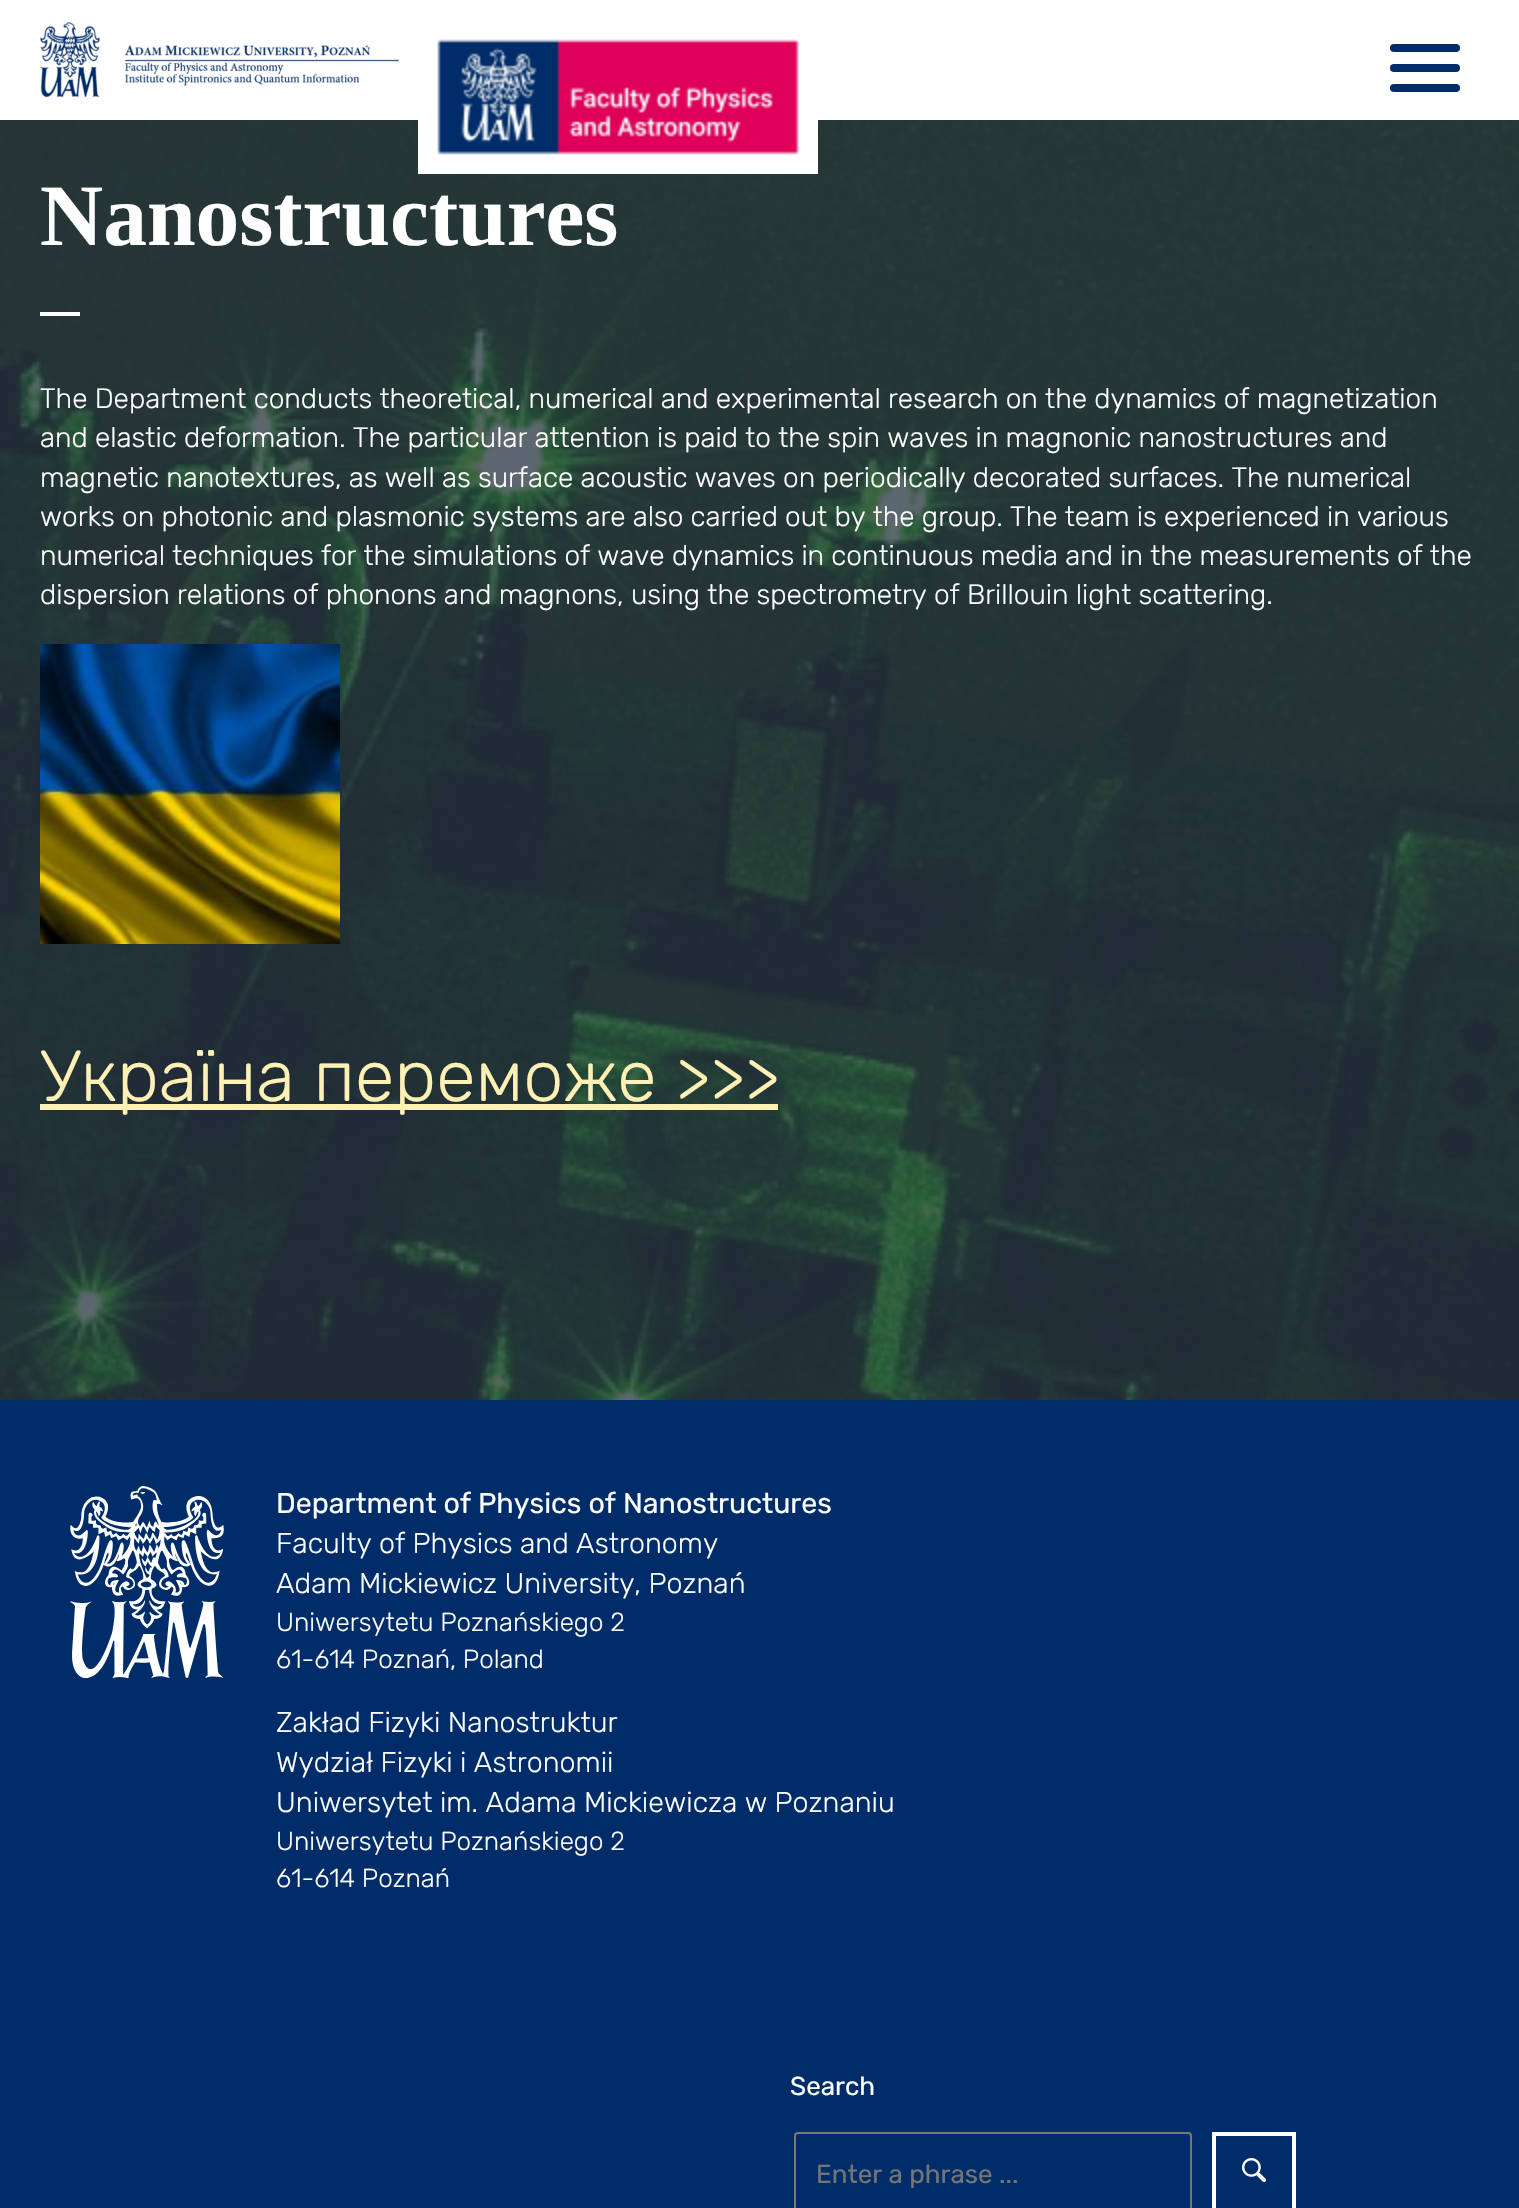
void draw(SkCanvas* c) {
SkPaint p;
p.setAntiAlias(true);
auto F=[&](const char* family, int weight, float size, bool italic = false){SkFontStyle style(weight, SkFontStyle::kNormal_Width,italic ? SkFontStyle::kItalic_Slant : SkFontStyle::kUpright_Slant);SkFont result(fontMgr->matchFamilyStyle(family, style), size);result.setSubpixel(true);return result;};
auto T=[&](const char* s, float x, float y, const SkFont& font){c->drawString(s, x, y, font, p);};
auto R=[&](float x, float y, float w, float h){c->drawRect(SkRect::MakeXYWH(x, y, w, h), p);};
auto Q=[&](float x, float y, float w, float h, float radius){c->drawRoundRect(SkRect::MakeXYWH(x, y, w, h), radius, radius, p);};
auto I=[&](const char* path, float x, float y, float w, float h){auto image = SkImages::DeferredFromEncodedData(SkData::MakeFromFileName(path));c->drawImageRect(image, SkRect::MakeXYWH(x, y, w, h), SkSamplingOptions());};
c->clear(0xff002d69);
p.setColor(0xffffffff);
R(0,0,1519,120);
I("1.png",40,21,360,77);
I("3.png",0,120,1519,1280);
I("2.png",418,39,400,135);
p.setColor(0xff002d69);
Q(1390,44,70,8,4);
Q(1390,64,70,8,4);
Q(1390,84,70,8,4);
auto f1 = F("Tinos",700,87.5);
p.setColor(0xffffffff);
T("Nanostructures",40,245,f1);
R(40,312,40,4);
auto f2 = F("Rubik",300,28);
T("The Department conducts theoretical, numerical and experimental research on the dynamics of magnetization",40,408,f2);
T("and elastic deformation. The particular attention is paid to the spin waves in magnonic nanostructures and",40,447,f2);
T("magnetic nanotextures, as well as surface acoustic waves on periodically decorated surfaces. The numerical",40,487,f2);
T("works on photonic and plasmonic systems are also carried out by the group. The team is experienced in various",40,526,f2);
T("numerical techniques for the simulations of wave dynamics in continuous media and in the measurements of the",40,565,f2);
T("dispersion relations of phonons and magnons, using the spectrometry of Brillouin light scattering.",40,604,f2);
I("4.png",40,644,300,300);
p.setColor(0xfffff0b6);
R(40,1104,738,6);
auto f3 = F("Rubik",300,72);
T("Україна переможе >>>",40,1101,f3);
I("5.png",70,1486,154,192);
auto f4 = F("Rubik",400,28.6);
p.setColor(0xffffffff);
T("Department of Physics of Nanostructures",276,1513,f4);
auto f5 = F("Rubik",300,28.6);
T("Faculty of Physics and Astronomy",276,1553,f5);
T("Adam Mickiewicz University, Poznań",276,1593,f5);
auto f6 = F("Rubik",300,26);
T("Uniwersytetu Poznańskiego 2",276,1631,f6);
T("61-614 Poznań, Poland",276,1668,f6);
T("Zakład Fizyki Nanostruktur",276,1732,f5);
T("Wydział Fizyki i Astronomii",276,1772,f5);
T("Uniwersytet im. Adama Mickiewicza w Poznaniu",276,1812,f5);
T("Uniwersytetu Poznańskiego 2",276,1850,f6);
T("61-614 Poznań",276,1887,f6);
auto f7 = F("Rubik",400,26);
T("Search",790,2095,f7);
p.setStroke(true);
p.setStrokeWidth(2);
p.setColor(0xff787878);
c->drawRoundRect(SkRect::MakeXYWH(795,2133,396,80),3,3,p);
p.setStroke(false);
p.setColor(0xff757575);
T("Enter a phrase ...",816,2183,f7);
p.setStroke(true);
p.setStrokeWidth(4);
p.setColor(0xffffffff);
c->drawRect(SkRect::MakeXYWH(1214,2134,80,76),p);
I("6.png",1242,2158,24,24);
}
